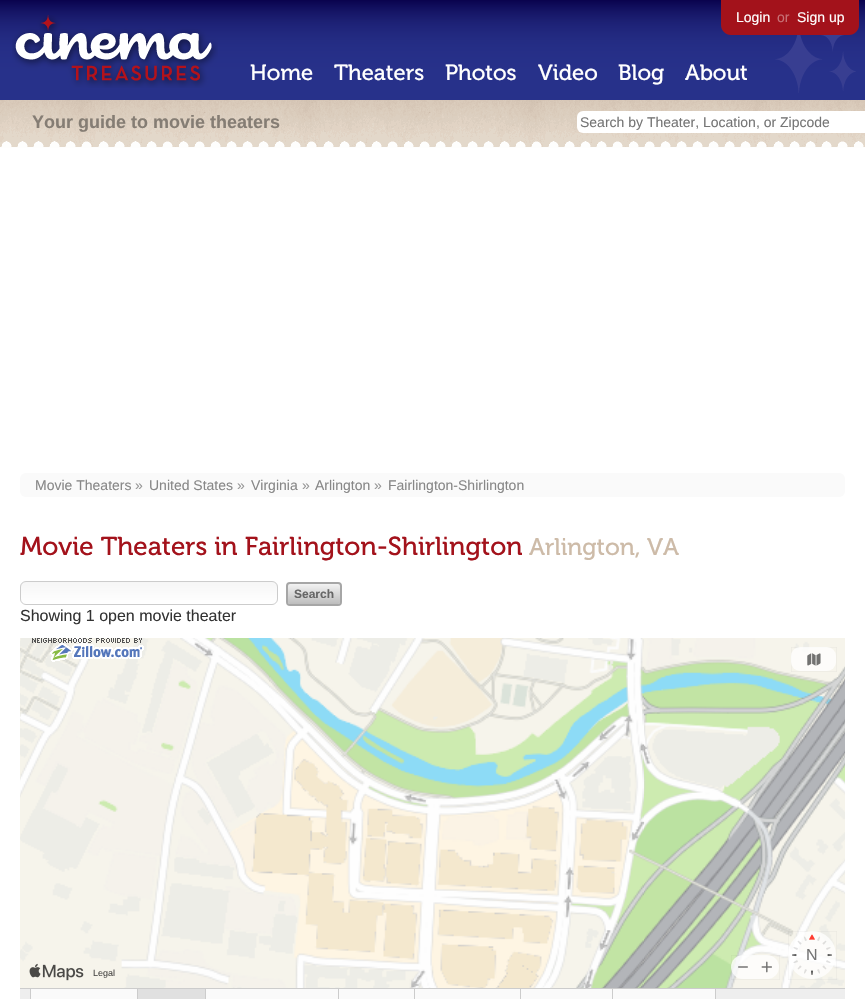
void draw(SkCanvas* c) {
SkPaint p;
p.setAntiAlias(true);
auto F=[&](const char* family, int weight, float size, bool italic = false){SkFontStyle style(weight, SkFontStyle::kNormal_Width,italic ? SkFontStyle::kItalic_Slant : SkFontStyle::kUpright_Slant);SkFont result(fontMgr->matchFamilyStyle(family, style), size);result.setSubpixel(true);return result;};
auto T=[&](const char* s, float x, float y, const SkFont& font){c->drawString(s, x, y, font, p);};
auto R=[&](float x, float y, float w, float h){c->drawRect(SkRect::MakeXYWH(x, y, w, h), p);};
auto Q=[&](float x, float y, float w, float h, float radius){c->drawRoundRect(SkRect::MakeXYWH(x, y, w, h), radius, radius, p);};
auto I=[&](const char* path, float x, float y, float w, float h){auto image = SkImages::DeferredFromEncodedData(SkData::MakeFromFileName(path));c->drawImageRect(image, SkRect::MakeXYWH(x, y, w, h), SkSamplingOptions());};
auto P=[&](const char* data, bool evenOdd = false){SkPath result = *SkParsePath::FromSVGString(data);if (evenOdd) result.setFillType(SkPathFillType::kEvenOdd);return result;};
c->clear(0xffffffff);
I("1.png",0,0,865,100);
I("2.png",12,15,206,73);
auto f1 = F("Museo",400,22);
p.setColor(0xffffffff);
T("Home",250,80,f1);
T("Theaters",334,80,f1);
T("Photos",445,80,f1);
T("Video",538,80,f1);
T("Blog",618,80,f1);
T("About",685,80,f1);
p.setColor(0xffa3121b);
c->drawPath(P("M721 0h138v25c0 5.5-4.5 10-10 10h-118c-5.5 0-10-4.5-10-10z"),p);
auto f2 = F("Liberation Sans",400,14);
p.setColor(0xffffffff);
T("Login",736,22,f2);
p.setColor(0xffc87176);
T("or",777,22,f2);
p.setColor(0xffffffff);
T("Sign up",797,22,f2);
I("3.png",775,35,81,58);
I("4.png",0,100,865,48);
auto f3 = F("Liberation Sans",700,18);
p.setColor(0xff857d74);
T("Your guide to movie theaters",32,128,f3);
p.setColor(0xffffffff);
Q(577,111,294,22,6);
p.setColor(0xff757575);
T("Search by Theater, Location, or Zipcode",580,127,f2);
p.setColor(0xfffafafa);
Q(20,473,825,24,6);
p.setColor(0xff888888);
T("Movie Theaters",35,490,f2);
p.setColor(0xff999999);
T("»",135,490,f2);
p.setColor(0xff888888);
T("United States",149,490,f2);
p.setColor(0xff999999);
T("»",237,490,f2);
p.setColor(0xff888888);
T("Virginia",251,490,f2);
p.setColor(0xff999999);
T("»",302,490,f2);
p.setColor(0xff888888);
T("Arlington",315,490,f2);
p.setColor(0xff999999);
T("»",374,490,f2);
p.setColor(0xff888888);
T("Fairlington-Shirlington",388,490,f2);
auto f4 = F("Museo",400,26);
p.setColor(0xffa3121b);
T("Movie Theaters in Fairlington-Shirlington",20,555,f4);
auto f5 = F("Museo",400,24);
p.setColor(0xffcdbba8);
T("Arlington, VA",529,555,f5);
c->save();
c->clipPath(P("M26 581h246c3.5 0 6 2.5 6 6v12c0 3.5-2.5 6-6 6h-246c-3.5 0-6-2.5-6-6v-12c0-3.5 2.5-6 6-6z"),true);
{
const SkColor colors[] = {0xfff6f6f6,0xffffffff};
const float stops[] = {0,1};
const SkPoint ends[] = {{149,582}, {149,604}};
p.setShader(SkGradientShader::MakeLinear(ends, colors, stops, 2, SkTileMode::kClamp));
p.setAlpha(255);
}
R(20,582,258,22);
c->restore();
p.setStroke(true);
p.setStrokeWidth(1);
p.setShader(nullptr);
p.setColor(0xffcccccc);
c->drawRoundRect(SkRect::MakeXYWH(20.5,581.5,257,23),5.5,5.5,p);
p.setStroke(false);
{
const SkColor colors[] = {0xfff2f2f2,0xffbdbdbd};
const float stops[] = {0,1};
const SkPoint ends[] = {{314,584}, {314,604}};
p.setShader(SkGradientShader::MakeLinear(ends, colors, stops, 2, SkTileMode::kClamp));
p.setAlpha(255);
}
Q(288,584,52,20,2);
p.setStroke(true);
p.setStrokeWidth(2);
p.setShader(nullptr);
p.setColor(0xffa6a6a6);
c->drawRoundRect(SkRect::MakeXYWH(287,583,54,22),3,3,p);
auto f6 = F("Liberation Sans",700,12);
p.setStroke(false);
p.setColor(0xff666666);
T("Search",294,598,f6);
auto f7 = F("Liberation Sans",400,16);
p.setColor(0xff333333);
T("Showing 1 open movie theater",20,621,f7);
I("6.png",20,638,825,350);
I("5.png",32,638,112,24);
p.setStroke(true);
p.setStrokeWidth(.5);
p.setColor(0x0d000000);
c->drawRect(SkRect::MakeXYWH(791.25,647.25,45.5,24.5),p);
p.setStroke(false);
p.setColor(0xbfffffff);
Q(791,647,45,24,9);
I("7.png",807,653,14,13);
p.setStroke(true);
p.setColor(0x0d000000);
c->drawRect(SkRect::MakeXYWH(731.25,955.25,48.5,24.5),p);
p.setStroke(false);
p.setColor(0xbfffffff);
Q(731,955,48,24,12);
I("8.png",738,966,10,2);
I("9.png",761,961,11,12);
p.setStroke(true);
p.setColor(0x0d000000);
c->drawRect(SkRect::MakeXYWH(788.25,931.25,48.5,48.5),p);
p.setStroke(false);
p.setColor(0xbfffffff);
c->drawCircle(812,955,24,p);
I("10.png",792,934,40,41);
p.setColor(0xff757575);
T("N",806,960,f7);
I("11.png",29,963,55,18);
auto f8 = F("Liberation Sans",400,9);
p.setColor(0xff4a4947);
T("Legal",93,976,f8);
p.setColor(0xffeeeeee);
R(20,989,825,10);
p.setColor(0xffcccccc);
R(20,988,825,1);
p.setColor(0xfffafafa);
R(31,989,106,10);
p.setColor(0xffcccccc);
R(137,989,1,10);
R(30,989,1,10);
p.setColor(0xffe0e0e0);
R(138,989,67,10);
p.setColor(0xffcccccc);
R(205,989,1,10);
p.setColor(0xfffafafa);
R(206,989,132,10);
p.setColor(0xffcccccc);
R(338,989,1,10);
p.setColor(0xfffafafa);
R(339,989,75,10);
p.setColor(0xffcccccc);
R(414,989,1,10);
p.setColor(0xfffafafa);
R(415,989,105,10);
p.setColor(0xffcccccc);
R(520,989,1,10);
p.setColor(0xfffafafa);
R(521,989,91,10);
p.setColor(0xffcccccc);
R(612,989,1,10);
p.setColor(0xfffafafa);
R(613,989,102,10);
p.setColor(0xffcccccc);
R(715,989,1,10);
}
